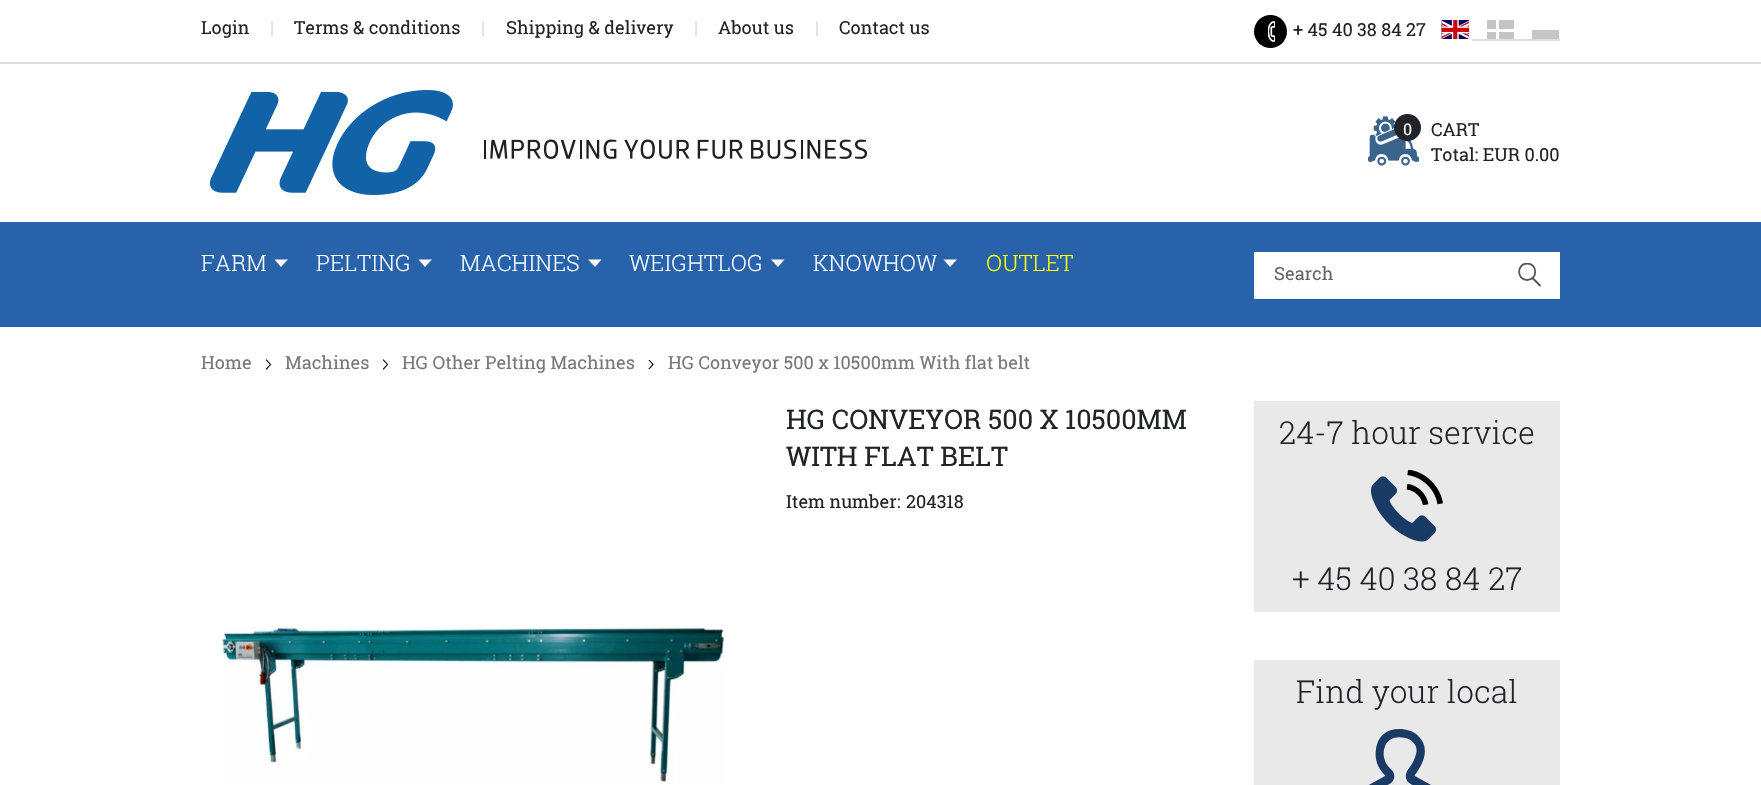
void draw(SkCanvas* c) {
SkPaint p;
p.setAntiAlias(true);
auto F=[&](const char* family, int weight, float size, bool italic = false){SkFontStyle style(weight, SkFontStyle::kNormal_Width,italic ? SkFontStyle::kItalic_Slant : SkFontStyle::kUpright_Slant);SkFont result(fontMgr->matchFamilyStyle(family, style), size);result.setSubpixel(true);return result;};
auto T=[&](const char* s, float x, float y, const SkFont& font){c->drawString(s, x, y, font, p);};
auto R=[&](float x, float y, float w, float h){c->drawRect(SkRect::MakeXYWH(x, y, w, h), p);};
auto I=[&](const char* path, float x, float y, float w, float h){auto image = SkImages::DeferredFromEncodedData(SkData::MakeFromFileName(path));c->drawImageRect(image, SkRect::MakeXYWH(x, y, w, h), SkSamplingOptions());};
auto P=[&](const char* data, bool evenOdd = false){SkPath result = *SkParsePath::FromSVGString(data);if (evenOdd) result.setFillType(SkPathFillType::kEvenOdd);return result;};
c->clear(0xffffffff);
p.setColor(0xffdcdcdc);
R(0,62,1761,2);
auto f1 = F("Roboto Slab",400,18);
p.setColor(0xff212326);
T("Login",201,34,f1);
p.setColor(0xffdcdcdc);
T("|",270,34,f1);
p.setColor(0xff212326);
T("Terms & conditions",294,34,f1);
p.setColor(0xffdcdcdc);
T("|",481,34,f1);
p.setColor(0xff212326);
T("Shipping & delivery",506,34,f1);
p.setColor(0xffdcdcdc);
T("|",694,34,f1);
p.setColor(0xff212326);
T("About us",718,34,f1);
p.setColor(0xffdcdcdc);
T("|",815,34,f1);
p.setColor(0xff212326);
T("Contact us",839,34,f1);
p.setColor(0xff000000);
c->drawCircle(1270.5,31.5,16.5,p);
I("1.png",1268,21,7,21);
p.setColor(0xff212326);
T("+ 45 40 38 84 27",1293,36,f1);
I("2.png",1441,20,29,19);
p.setColor(0xffdddddd);
R(1472,39,88,2);
p.setColor(0xffc4c4c4);
R(1487,20,27,19);
p.setColor(0xffffffff);
R(1496,20,3,19);
R(1487,29,27,3);
p.setColor(0xffc6c6c6);
R(1532,30,27,9);
I("3.png",209,90,659,105);
I("4.png",1368,116,51,50);
p.setColor(0xff212326);
c->drawCircle(1407.5,127.5,13.5,p);
auto f2 = F("Roboto Slab",400,16);
p.setColor(0xffffffff);
T("0",1403,135,f2);
p.setColor(0xff212326);
T("CART",1431,136,f1);
T("Total: EUR 0.00",1431,161,f1);
p.setColor(0xff2762aa);
R(0,222,1761,105);
auto f3 = F("Roboto Slab",300,22.5);
p.setColor(0xffffffff);
T("FARM",201,271,f3);
c->drawPath(P("M274.5 259.5l6.5 7.5l7-7.5z"),p);
T("PELTING",316,271,f3);
c->drawPath(P("M418.5 259.5l6.5 7.5l7-7.5z"),p);
T("MACHINES",460,271,f3);
c->drawPath(P("M588 259.5l7 7.5l6.5-7.5z"),p);
T("WEIGHTLOG",629,271,f3);
c->drawPath(P("M771 259.5l7 7.5l6.5-7.5z"),p);
T("KNOWHOW",813,271,f3);
c->drawPath(P("M943.5 259.5l6.5 7.5l7-7.5z"),p);
p.setColor(0xffffff00);
T("OUTLET",986,271,f3);
p.setColor(0xffffffff);
R(1254,252,306,47);
p.setColor(0xff666666);
T("Search",1274,280,f1);
c->save();
c->clipRect(SkRect::MakeXYWH(1518,263,23,24));
p.setStroke(true);
p.setStrokeWidth(1.8);
p.setStrokeCap(SkPaint::kRound_Cap);
p.setStrokeJoin(SkPaint::kRound_Join);
p.setColor(0xff555555);
c->drawPath(P("M1527 280c11 0 11-16.5 0-16.5c-10.5 0-10.5 16.5 0 16.5z"),p);
c->restore();
c->drawPath(P("M1532.5 278l7.5 7.5"),p);
p.setStroke(false);
p.setColor(0xff787878);
T("Home",201,369,f1);
p.setStroke(true);
p.setStrokeWidth(1.1);
p.setStrokeCap(SkPaint::kSquare_Cap);
p.setStrokeJoin(SkPaint::kMiter_Join);
p.setColor(0xff000000);
c->drawPath(P("M266.5 360l4 4.5l-4 4.5"),p);
p.setStroke(false);
p.setColor(0xff787878);
T("Machines",285,369,f1);
p.setStroke(true);
p.setColor(0xff000000);
c->drawPath(P("M383.5 360l4 4.5l-4 4.5"),p);
p.setStroke(false);
p.setColor(0xff787878);
T("HG Other Pelting Machines",402,369,f1);
c->save();
c->clipRect(SkRect::MakeXYWH(648,360,6,9));
p.setStroke(true);
p.setColor(0xff000000);
c->drawPath(P("M649 360l4 4.5l-4 4.5"),p);
c->restore();
p.setStroke(false);
p.setColor(0xff787878);
T("HG Conveyor 500 x 10500mm With flat belt",668,369,f1);
I("5.png",222,627,503,156);
auto f4 = F("Roboto Slab",400,27);
p.setColor(0xff212326);
T("HG CONVEYOR 500 X 10500MM",786,429,f4);
T("WITH FLAT BELT",786,466,f4);
T("Item number:",786,508,f1);
T("204318",906,508,f1);
p.setColor(0xffe9e9e9);
R(1254,401,306,211);
auto f5 = F("Roboto Slab",300,31.5);
p.setColor(0xff212326);
T("24-7 hour service",1279,444,f5);
I("6.png",1371,470,72,72);
T("+ 45 40 38 84 27",1292,590,f5);
p.setColor(0xffe9e9e9);
R(1254,660,306,125);
p.setColor(0xff212326);
T("Find your local",1296,703,f5);
I("7.png",1369,729,62,56);
}
